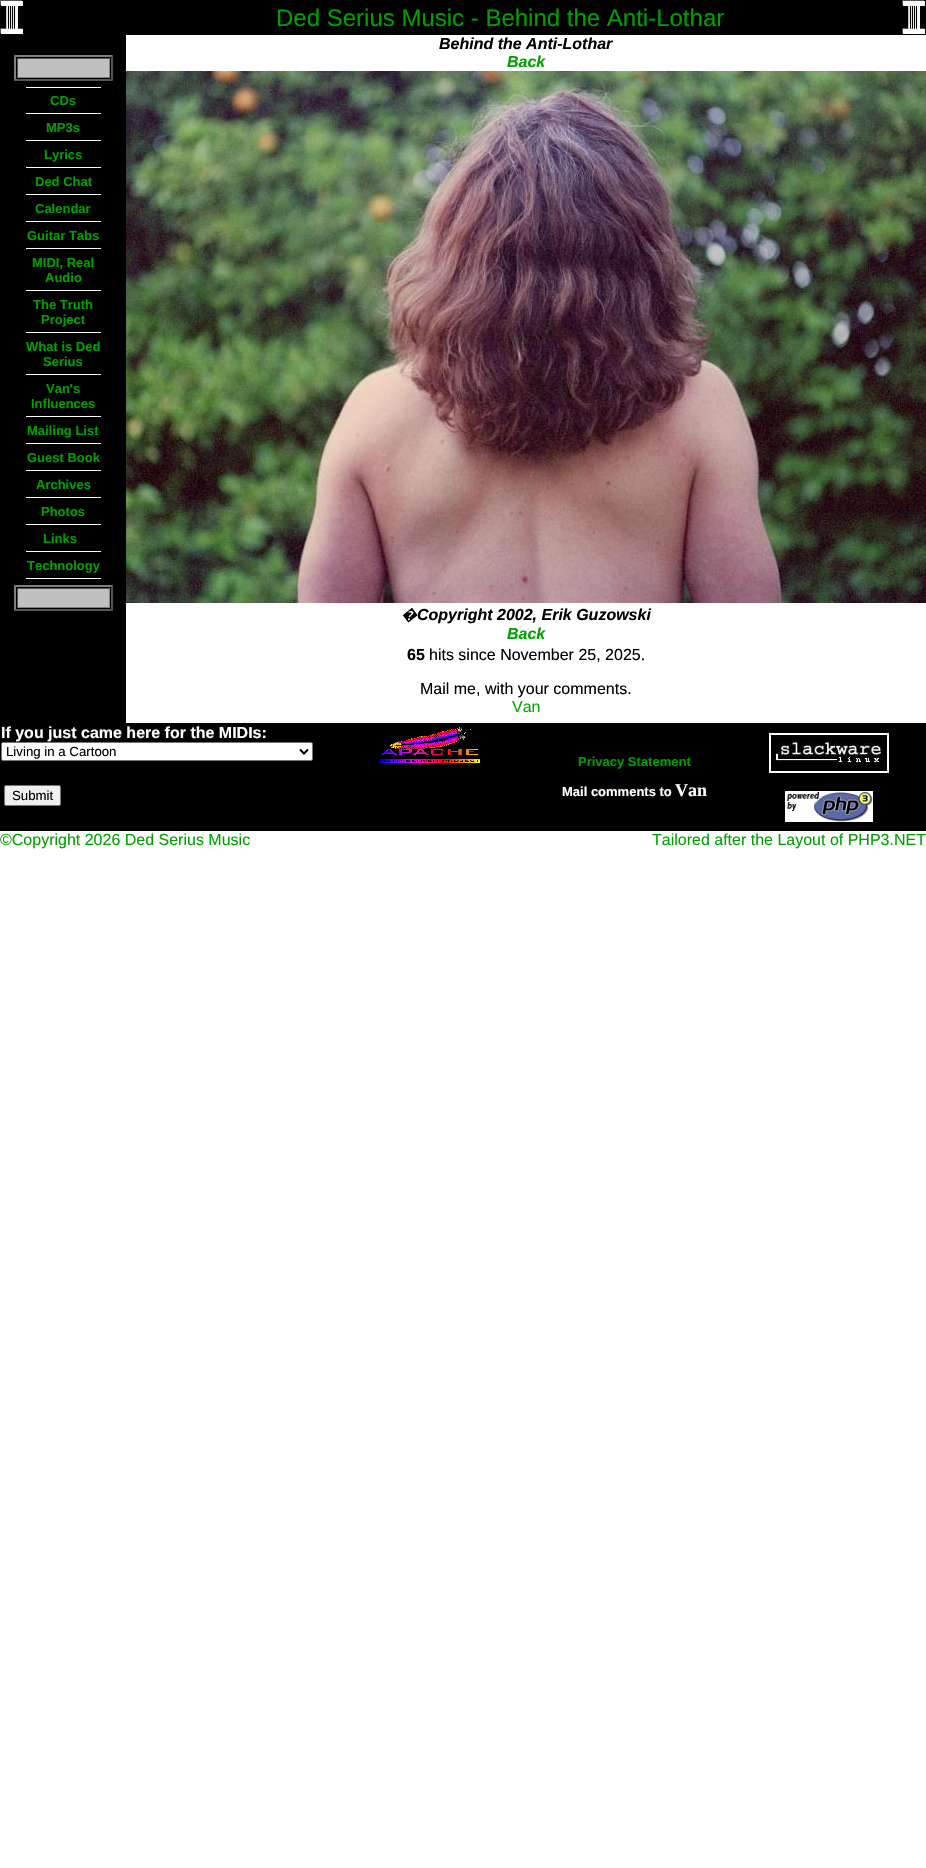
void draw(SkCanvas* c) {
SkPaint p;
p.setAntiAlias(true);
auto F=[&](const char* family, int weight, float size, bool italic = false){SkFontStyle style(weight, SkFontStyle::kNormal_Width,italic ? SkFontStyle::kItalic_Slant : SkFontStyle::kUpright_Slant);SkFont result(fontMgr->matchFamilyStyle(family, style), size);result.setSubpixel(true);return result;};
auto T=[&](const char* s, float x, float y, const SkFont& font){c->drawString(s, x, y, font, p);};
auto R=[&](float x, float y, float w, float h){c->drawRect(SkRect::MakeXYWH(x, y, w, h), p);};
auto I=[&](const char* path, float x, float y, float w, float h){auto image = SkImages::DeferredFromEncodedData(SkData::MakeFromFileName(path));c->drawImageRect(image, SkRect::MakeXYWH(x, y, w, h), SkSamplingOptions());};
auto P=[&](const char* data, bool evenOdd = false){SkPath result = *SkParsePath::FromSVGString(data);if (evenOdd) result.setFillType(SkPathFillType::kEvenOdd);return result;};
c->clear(0xffffffff);
p.setColor(0xff000000);
R(24,0,878,35);
I("1.png",0,0,24,35);
I("1.png",902,0,24,35);
auto f1 = F("Liberation Sans",400,24);
p.setColor(0xff00a000);
T("Ded Serius Music - Behind the Anti-Lothar",276,26,f1);
p.setColor(0xff000000);
R(0,35,126,688);
p.setColor(0xff808080);
c->drawPath(P("M14 55h99l-2 2h-95z"),p);
p.setColor(0xff555555);
c->drawPath(P("M113 55v26l-2-2v-22z"),p);
c->drawPath(P("M113 81h-99l2-2h95z"),p);
p.setColor(0xff808080);
c->drawPath(P("M14 81v-26l2 2v22z"),p);
p.setColor(0xffc0c0c0);
R(18,59,91,18);
p.setColor(0xff555555);
R(17,58,93,1);
p.setColor(0xff808080);
R(109,58,1,20);
R(17,77,93,1);
p.setColor(0xff555555);
R(17,58,1,20);
p.setColor(0xffffffff);
R(26,87,75,1);
auto f2 = F("Liberation Sans",700,13);
p.setColor(0xff00a000);
T("CDs",50,105,f2);
p.setColor(0xffffffff);
R(26,113,75,1);
p.setColor(0xff00a000);
T("MP3s",46,132,f2);
p.setColor(0xffffffff);
R(26,140,75,1);
p.setColor(0xff00a000);
T("Lyrics",44,159,f2);
p.setColor(0xffffffff);
R(26,167,75,1);
p.setColor(0xff00a000);
T("Ded Chat",35,186,f2);
p.setColor(0xffffffff);
R(26,194,75,1);
p.setColor(0xff00a000);
T("Calendar",35,213,f2);
p.setColor(0xffffffff);
R(26,221,75,1);
p.setColor(0xff00a000);
T("Guitar Tabs",27,240,f2);
p.setColor(0xffffffff);
R(26,248,75,1);
p.setColor(0xff00a000);
T("MIDI, Real",32,267,f2);
T("Audio",45,282,f2);
p.setColor(0xffffffff);
R(26,290,75,1);
p.setColor(0xff00a000);
T("The Truth",33,309,f2);
T("Project",41,324,f2);
p.setColor(0xffffffff);
R(26,332,75,1);
p.setColor(0xff00a000);
T("What is Ded",26,351,f2);
T("Serius",43,366,f2);
p.setColor(0xffffffff);
R(26,374,75,1);
p.setColor(0xff00a000);
T("Van's",46,393,f2);
T("Influences",31,408,f2);
p.setColor(0xffffffff);
R(26,416,75,1);
p.setColor(0xff00a000);
T("Mailing List",27,435,f2);
p.setColor(0xffffffff);
R(26,443,75,1);
p.setColor(0xff00a000);
T("Guest Book",27,462,f2);
p.setColor(0xffffffff);
R(26,470,75,1);
p.setColor(0xff00a000);
T("Archives",36,489,f2);
p.setColor(0xffffffff);
R(26,497,75,1);
p.setColor(0xff00a000);
T("Photos",41,516,f2);
p.setColor(0xffffffff);
R(26,524,75,1);
p.setColor(0xff00a000);
T("Links",43,543,f2);
p.setColor(0xffffffff);
R(26,551,75,1);
p.setColor(0xff00a000);
T("Technology",27,570,f2);
p.setColor(0xffffffff);
R(26,578,75,1);
p.setColor(0xff808080);
c->drawPath(P("M14 585h99l-2 2h-95z"),p);
p.setColor(0xff555555);
c->drawPath(P("M113 585v26l-2-2v-22z"),p);
c->drawPath(P("M113 611h-99l2-2h95z"),p);
p.setColor(0xff808080);
c->drawPath(P("M14 611v-26l2 2v22z"),p);
p.setColor(0xffc0c0c0);
R(18,589,91,18);
p.setColor(0xff555555);
R(17,588,93,1);
p.setColor(0xff808080);
R(109,588,1,20);
R(17,607,93,1);
p.setColor(0xff555555);
R(17,588,1,20);
auto f3 = F("Liberation Sans",700,16,true);
p.setColor(0xff000000);
T("Behind the Anti-Lothar",439,49,f3);
p.setColor(0xff00a000);
T("Back",507,67,f3);
I("2.png",126,71,800,532);
auto f4 = F("Noto Sans",700,16,true);
p.setColor(0xff000000);
T("�",401,620,f4);
T("Copyright 2002, Erik Guzowski",417,620,f3);
p.setColor(0xff00a000);
T("Back",507,639,f3);
auto f5 = F("Liberation Sans",700,16);
p.setColor(0xff000000);
T("65",407,660,f5);
auto f6 = F("Liberation Sans",400,16);
T("hits since November 25, 2025",429,660,f6);
auto f7 = F("Liberation Serif",400,16);
T(".",641,660,f7);
T("Mail me, with your comments.",420,694,f6);
p.setColor(0xff00aa00);
T("Van",512,712,f6);
p.setColor(0xff000000);
R(0,723,926,108);
p.setColor(0xffffffff);
T("If you just came here for the MIDIs:",1,738,f5);
c->drawRoundRect(SkRect::MakeXYWH(1.5,742.5,311,18),1.5,1.5,p);
p.setStroke(true);
p.setStrokeWidth(1);
p.setColor(0xff767676);
c->drawRoundRect(SkRect::MakeXYWH(1.5,742.5,311,18),1.5,1.5,p);
p.setStrokeWidth(2);
p.setColor(0xff000000);
c->drawPath(P("M300 749.5l4 4l4-4"),p);
auto f8 = F("Liberation Sans",400,13.25);
p.setStroke(false);
T("Living in a Cartoon",6,756,f8);
p.setColor(0xffefefef);
c->drawRoundRect(SkRect::MakeXYWH(4.5,785.5,56,20),1.5,1.5,p);
p.setStroke(true);
p.setStrokeWidth(1);
p.setColor(0xff767676);
c->drawRoundRect(SkRect::MakeXYWH(4.5,785.5,56,20),1.5,1.5,p);
p.setStroke(false);
p.setColor(0xff000000);
T("Submit",12,800,f8);
I("3.png",380,727,100,36);
p.setColor(0xff00a000);
T("Privacy Statement",578,766,f2);
p.setColor(0xffffffff);
T("Mail comments to",562,796,f2);
auto f9 = F("Liberation Serif",700,18);
T("Van",675,796,f9);
I("4.png",769,733,120,40);
I("5.png",785,791,88,31);
p.setColor(0xff00a000);
T("©Copyright 2026 Ded Serius Music",0,845,f6);
T("Tailored after the Layout of PHP3.NET",652,845,f6);
}
